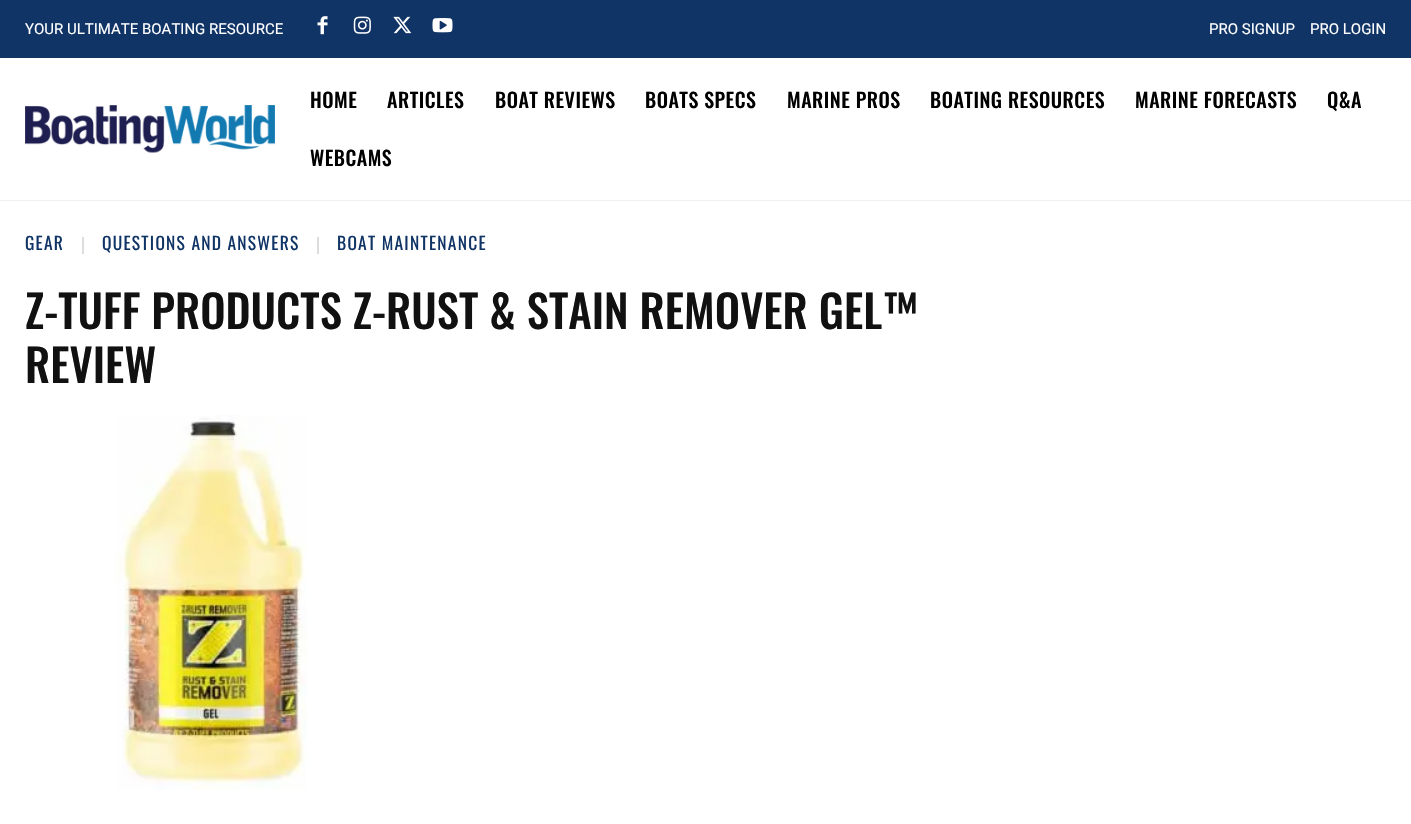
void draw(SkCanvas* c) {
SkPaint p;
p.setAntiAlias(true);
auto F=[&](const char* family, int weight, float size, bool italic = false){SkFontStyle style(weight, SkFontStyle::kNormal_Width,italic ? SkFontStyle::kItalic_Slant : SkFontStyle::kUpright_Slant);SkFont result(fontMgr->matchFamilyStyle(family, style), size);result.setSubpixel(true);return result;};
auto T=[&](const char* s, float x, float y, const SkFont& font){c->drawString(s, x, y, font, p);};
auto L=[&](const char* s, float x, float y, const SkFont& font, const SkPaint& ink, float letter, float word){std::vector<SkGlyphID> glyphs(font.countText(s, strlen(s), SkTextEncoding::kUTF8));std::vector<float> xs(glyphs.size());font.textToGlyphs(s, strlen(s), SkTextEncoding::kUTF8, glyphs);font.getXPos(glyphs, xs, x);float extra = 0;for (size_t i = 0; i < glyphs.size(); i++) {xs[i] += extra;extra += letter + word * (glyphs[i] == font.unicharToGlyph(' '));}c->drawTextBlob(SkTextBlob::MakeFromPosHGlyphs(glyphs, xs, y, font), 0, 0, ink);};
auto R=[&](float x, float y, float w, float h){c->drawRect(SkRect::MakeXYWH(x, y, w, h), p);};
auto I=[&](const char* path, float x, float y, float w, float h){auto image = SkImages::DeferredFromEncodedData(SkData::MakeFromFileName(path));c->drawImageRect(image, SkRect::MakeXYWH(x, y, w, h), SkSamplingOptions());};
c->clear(0xffffffff);
p.setColor(0xffefefef);
R(0,200,1411,1);
p.setColor(0xff103466);
R(0,0,1411,58);
auto f1 = F("Roboto",400,15);
p.setColor(0xffffffff);
T("YOUR ULTIMATE BOATING RESOURCE",25,34,f1);
I("1.png",317,16,11,19);
I("2.png",353,16,18,18);
I("3.png",393,16,19,18);
I("4.png",432,18,21,15);
T("PRO SIGNUP",1209,34,f1);
T("PRO LOGIN",1310,34,f1);
I("5.png",25,105,250,48);
auto f2 = F("Oswald",500,20);
p.setColor(0xff000000);
L("HOME",310,108,f2,p,.5,0);
L("ARTICLES",387,108,f2,p,.5,0);
L("BOAT REVIEWS",495,108,f2,p,.5,0);
L("BOATS SPECS",645,108,f2,p,.5,0);
L("MARINE PROS",787,108,f2,p,.5,0);
L("BOATING RESOURCES",930,108,f2,p,.5,0);
L("MARINE FORECASTS",1135,108,f2,p,.5,0);
L("Q&A",1327,108,f2,p,.5,0);
L("WEBCAMS",310,166,f2,p,.5,0);
auto f3 = F("Oswald",400,17.5);
p.setColor(0xff103466);
L("GEAR",25,250,f3,p,1.25,0);
p.setColor(0xffdddddd);
R(82,237,2,17);
p.setColor(0xff103466);
L("QUESTIONS AND ANSWERS",102,250,f3,p,1.25,0);
p.setColor(0xffdddddd);
R(317,237,2,17);
p.setColor(0xff103466);
L("BOAT MAINTENANCE",337,250,f3,p,1.25,0);
auto f4 = F("Oswald",500,45);
p.setColor(0xff111111);
T("Z-TUFF PRODUCTS Z-RUST & STAIN REMOVER GEL™",25,329,f4);
T("REVIEW",25,383,f4);
I("6.png",115,415,192,375);
}
